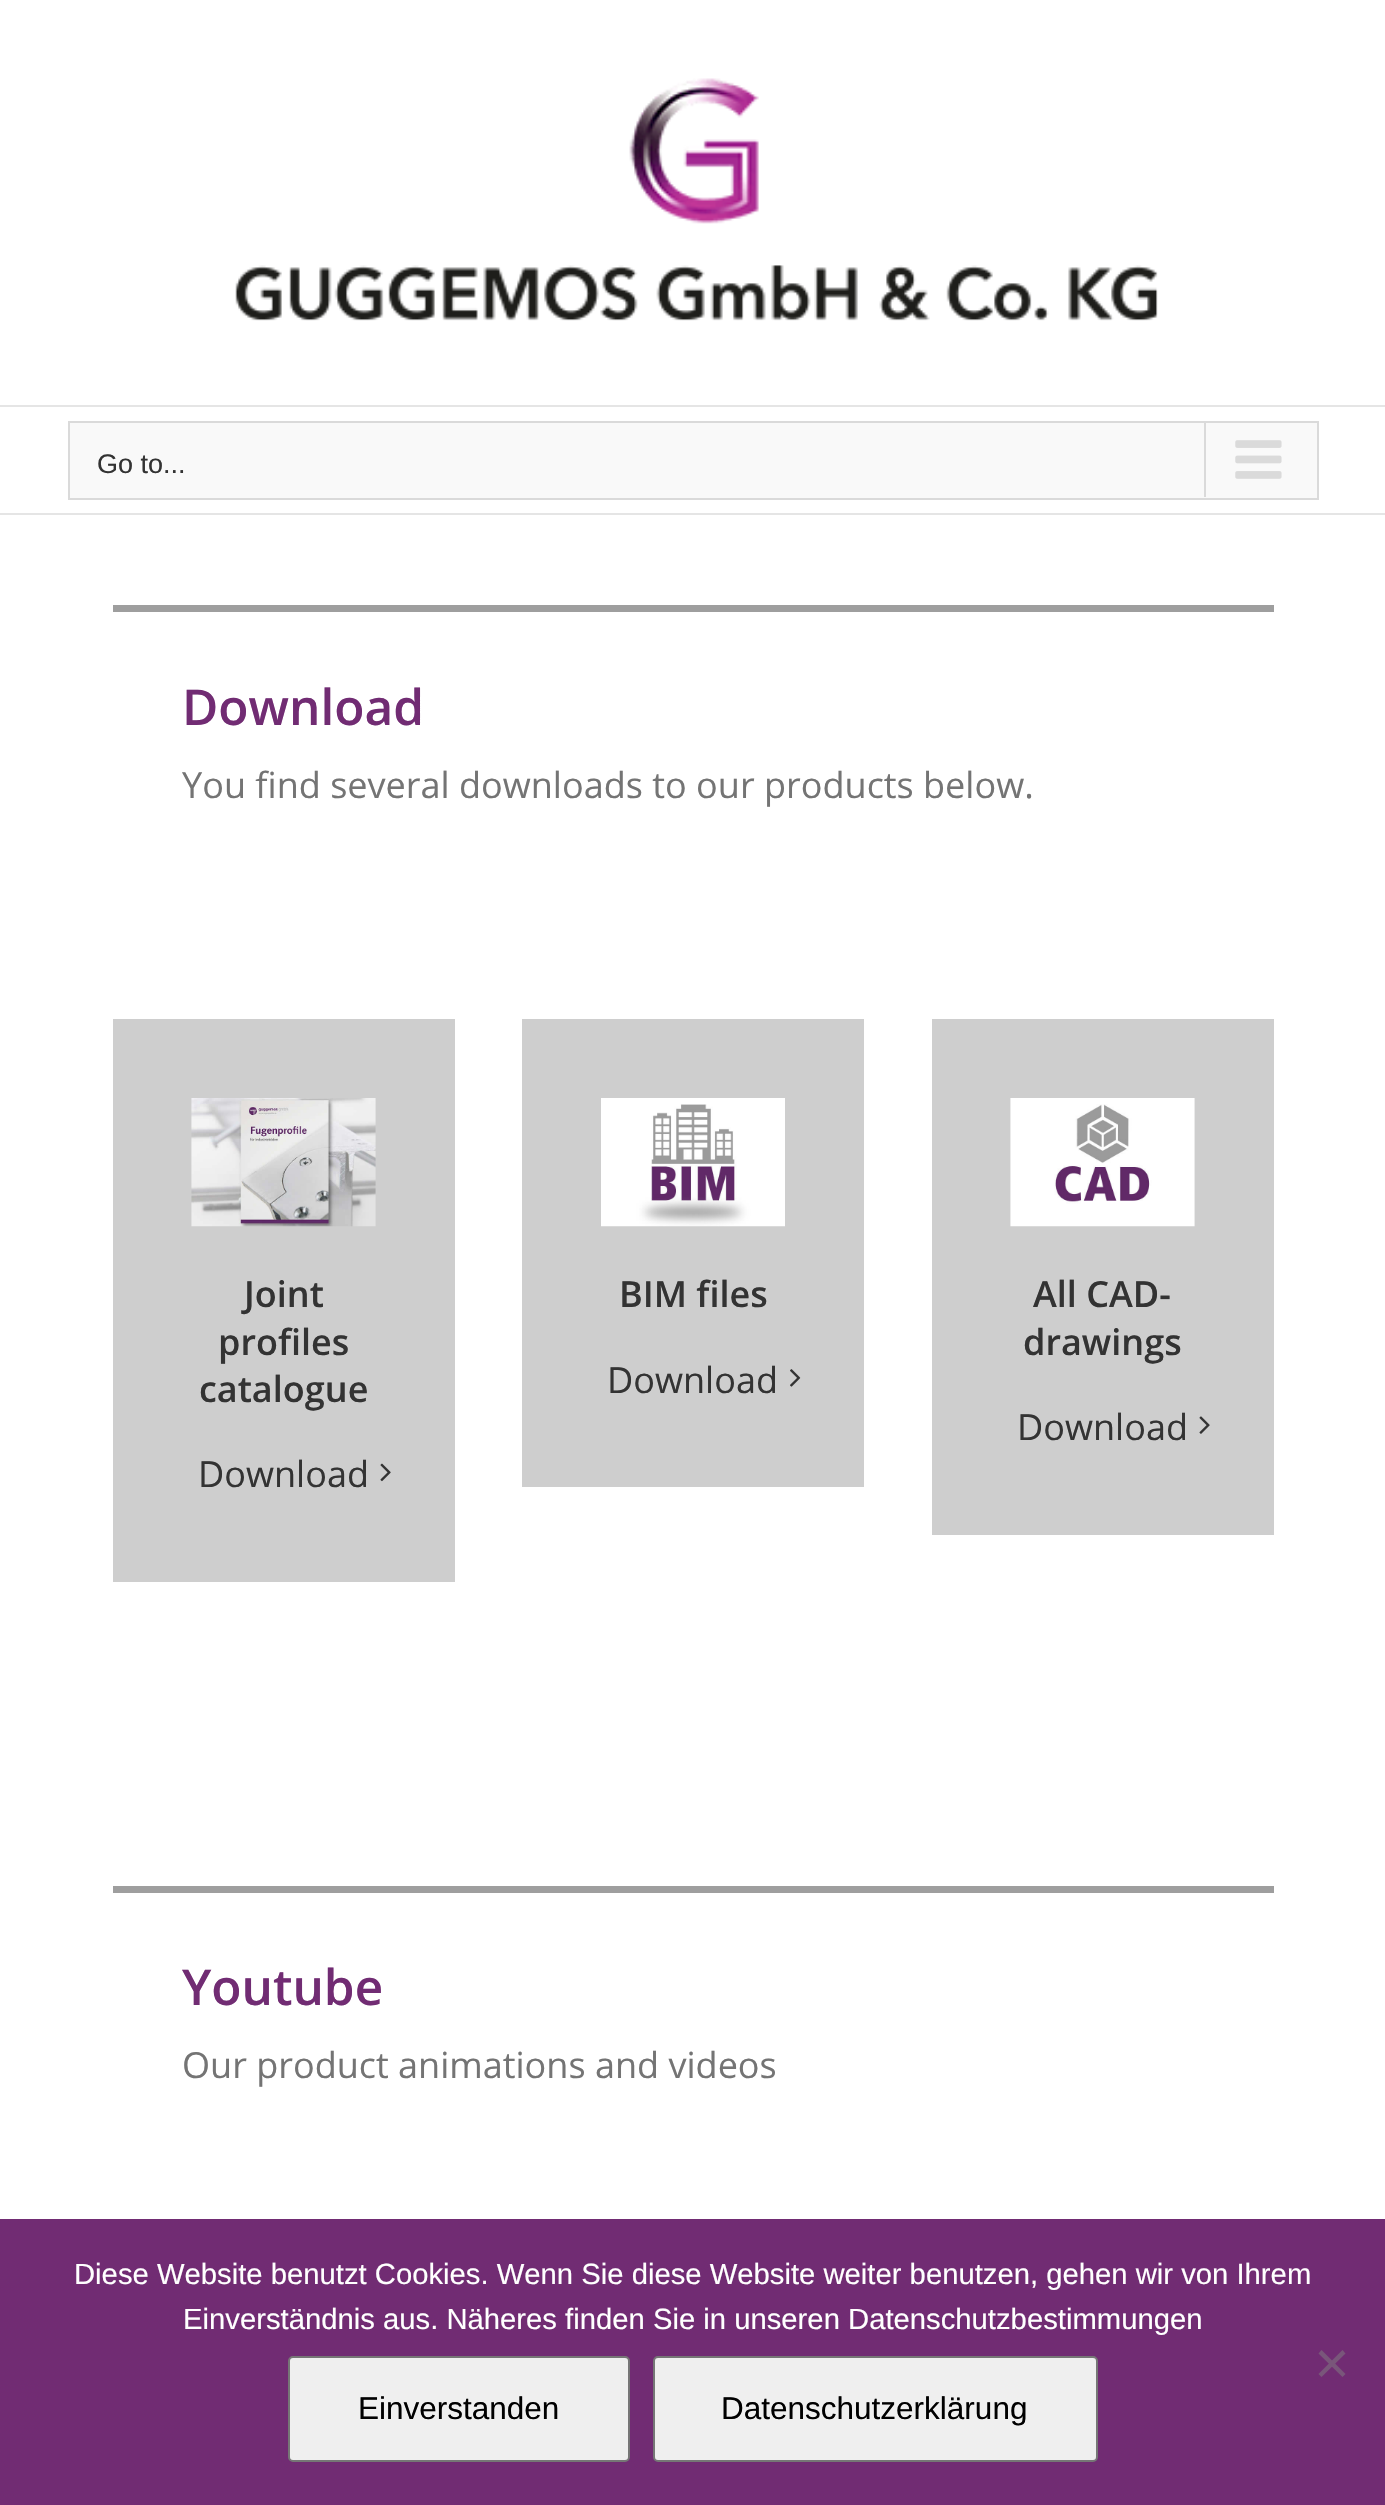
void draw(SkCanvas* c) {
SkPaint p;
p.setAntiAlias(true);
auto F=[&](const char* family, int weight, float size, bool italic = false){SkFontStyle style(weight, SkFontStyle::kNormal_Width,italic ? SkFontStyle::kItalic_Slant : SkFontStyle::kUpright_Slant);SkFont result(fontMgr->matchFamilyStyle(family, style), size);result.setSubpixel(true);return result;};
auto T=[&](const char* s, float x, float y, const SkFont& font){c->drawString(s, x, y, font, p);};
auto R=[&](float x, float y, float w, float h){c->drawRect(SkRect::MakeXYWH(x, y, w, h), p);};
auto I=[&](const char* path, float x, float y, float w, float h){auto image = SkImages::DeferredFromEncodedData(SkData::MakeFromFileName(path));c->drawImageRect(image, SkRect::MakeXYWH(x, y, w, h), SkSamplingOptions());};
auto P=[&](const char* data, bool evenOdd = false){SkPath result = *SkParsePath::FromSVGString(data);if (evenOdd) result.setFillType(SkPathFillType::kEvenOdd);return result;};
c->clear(0xffffffff);
p.setColor(0xffe5e5e5);
R(0,405,1385,2);
I("1.png",235,78,923,243);
R(0,513,1385,2);
p.setColor(0xfff9f9f9);
c->drawRect(SkRect::MakeXYWH(69,422,1249,77),p);
p.setStroke(true);
p.setStrokeWidth(2);
p.setColor(0xffdadada);
c->drawRect(SkRect::MakeXYWH(69,422,1249,77),p);
auto f1 = F("Liberation Sans",400,27);
p.setStroke(false);
p.setColor(0xff333333);
T("Go to...",97,473,f1);
p.setColor(0xffdadada);
R(1204,423,2,74);
I("2.png",1235,440,47,39);
p.setColor(0xff9e9e9e);
R(113,605,1161,7);
auto f2 = F("Open Sans",600,49.5);
p.setColor(0xff712c73);
T("Download",182,725,f2);
auto f3 = F("Open Sans",400,36);
p.setColor(0xff747474);
T("You find several downloads to our products below.",182,798,f3);
p.setColor(0xffcecece);
R(113,1019,342,563);
I("3.png",191,1098,185,129);
auto f4 = F("Open Sans",600,36);
p.setColor(0xff333333);
T("Joint",244,1307,f4);
T("profiles",218,1355,f4);
T("catalogue",199,1402,f4);
T("Download",198,1487,f3);
I("4.png",380,1463,11,19);
p.setColor(0xffcecece);
R(522,1019,342,468);
I("5.png",601,1098,184,129);
p.setColor(0xff333333);
T("BIM files",619,1307,f4);
T("Download",607,1393,f3);
I("6.png",790,1369,11,18);
p.setColor(0xffcecece);
R(932,1019,342,516);
I("7.png",1010,1098,185,129);
p.setColor(0xff333333);
T("All CAD-",1033,1307,f4);
T("drawings",1023,1355,f4);
T("Download",1017,1440,f3);
I("8.png",1199,1416,11,18);
p.setColor(0xff9e9e9e);
R(113,1886,1161,7);
p.setColor(0xff712c73);
T("Youtube",182,2005,f2);
p.setColor(0xff747474);
T("Our product animations and videos",182,2078,f3);
p.setColor(0xff712c73);
R(0,2219,1385,286);
auto f5 = F("Liberation Sans",400,29.25);
p.setColor(0xffffffff);
T("Diese Website benutzt Cookies. Wenn Sie diese Website weiter benutzen, gehen wir von Ihrem",74,2284,f5);
T("Einverständnis aus. Näheres finden Sie in unseren Datenschutzbestimmungen",183,2329,f5);
p.setColor(0xff79567a);
c->drawPath(P("M1342.5 2350l3 3.5l-24 23.5l-3-3z"),p);
c->drawPath(P("M1318.5 2353.5l3-3.5l24 24l-3 3z"),p);
p.setColor(0xffefefef);
c->drawRoundRect(SkRect::MakeXYWH(289,2357,340,104),4,4,p);
p.setStroke(true);
p.setColor(0xff767676);
c->drawRoundRect(SkRect::MakeXYWH(289,2357,340,104),4,4,p);
auto f6 = F("Liberation Sans",400,31.5);
p.setStroke(false);
p.setColor(0xff000000);
T("Einverstanden",358,2419,f6);
p.setColor(0xffefefef);
c->drawRoundRect(SkRect::MakeXYWH(654,2357,443,104),4,4,p);
p.setStroke(true);
p.setColor(0xff767676);
c->drawRoundRect(SkRect::MakeXYWH(654,2357,443,104),4,4,p);
p.setStroke(false);
p.setColor(0xff000000);
T("Datenschutzerklärung",721,2419,f6);
}
